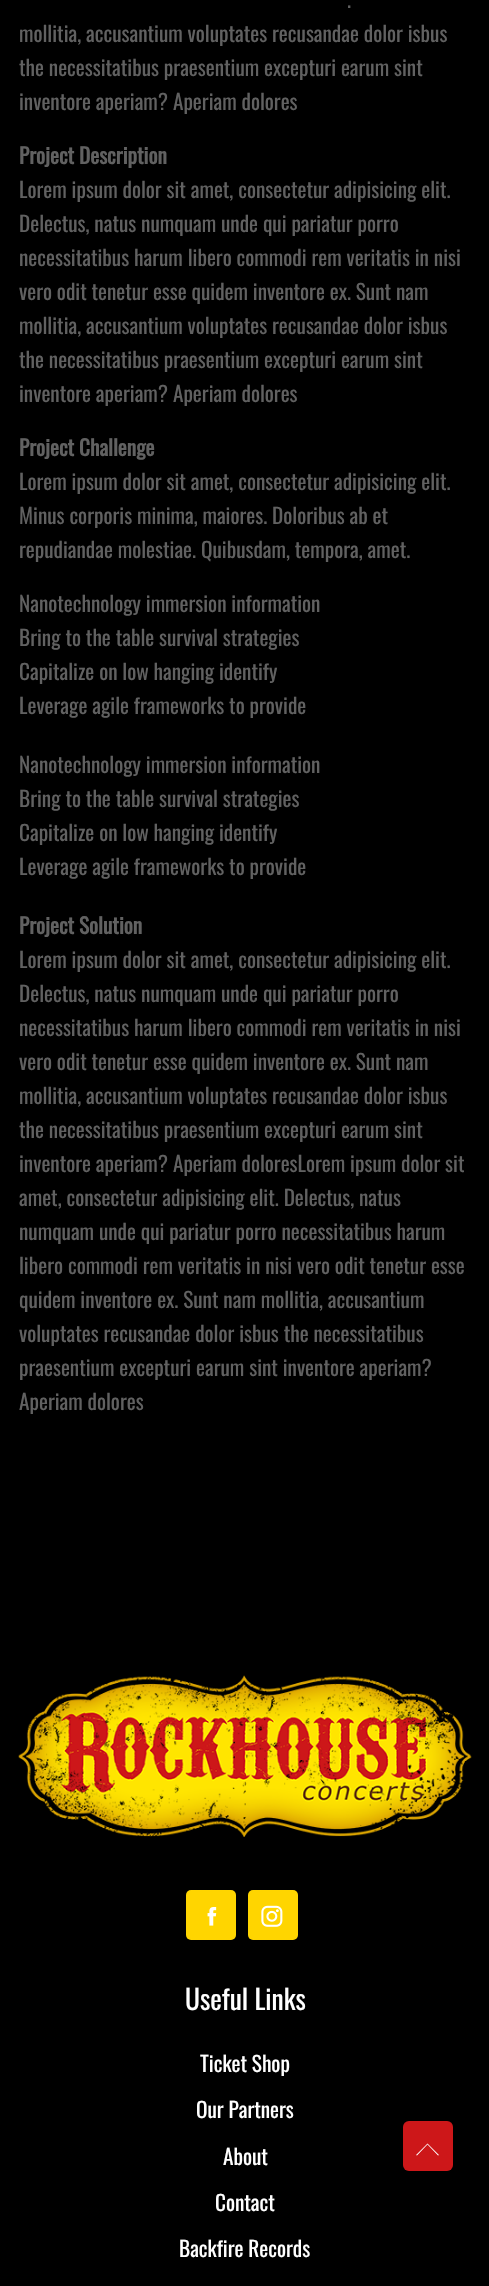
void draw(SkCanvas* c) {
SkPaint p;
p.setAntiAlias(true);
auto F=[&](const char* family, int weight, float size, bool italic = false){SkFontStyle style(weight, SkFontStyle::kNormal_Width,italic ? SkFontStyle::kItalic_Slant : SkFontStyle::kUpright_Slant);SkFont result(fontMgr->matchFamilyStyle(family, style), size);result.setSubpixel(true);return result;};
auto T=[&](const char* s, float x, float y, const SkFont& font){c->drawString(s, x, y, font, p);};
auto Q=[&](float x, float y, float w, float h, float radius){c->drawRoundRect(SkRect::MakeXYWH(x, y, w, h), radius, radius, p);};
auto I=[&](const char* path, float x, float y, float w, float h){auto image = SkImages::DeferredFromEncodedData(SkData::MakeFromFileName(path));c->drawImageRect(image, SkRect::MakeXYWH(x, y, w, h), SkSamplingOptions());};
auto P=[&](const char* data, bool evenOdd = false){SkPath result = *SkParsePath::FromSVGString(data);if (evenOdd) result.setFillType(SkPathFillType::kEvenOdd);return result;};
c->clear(0xff000000);
auto f1 = F("Oswald",400,21.25);
p.setColor(0xff616161);
T(".",347,8,f1);
T("mollitia, accusantium voluptates recusandae dolor isbus",19,42,f1);
T("the necessitatibus praesentium excepturi earum sint",19,76,f1);
T("inventore aperiam? Aperiam dolores",19,110,f1);
auto f2 = F("Oswald",700,21.25);
T("Project Description",19,164,f2);
T("Lorem ipsum dolor sit amet, consectetur adipisicing elit.",19,198,f1);
T("Delectus, natus numquam unde qui pariatur porro",19,232,f1);
T("necessitatibus harum libero commodi rem veritatis in nisi",19,266,f1);
T("vero odit tenetur esse quidem inventore ex. Sunt nam",19,300,f1);
T("mollitia, accusantium voluptates recusandae dolor isbus",19,334,f1);
T("the necessitatibus praesentium excepturi earum sint",19,368,f1);
T("inventore aperiam? Aperiam dolores",19,402,f1);
T("Project Challenge",19,456,f2);
T("Lorem ipsum dolor sit amet, consectetur adipisicing elit.",19,490,f1);
T("Minus corporis minima, maiores. Doloribus ab et",19,524,f1);
T("repudiandae molestiae. Quibusdam, tempora, amet.",19,558,f1);
T("Nanotechnology immersion information",19,612,f1);
T("Bring to the table survival strategies",19,646,f1);
T("Capitalize on low hanging identify",19,680,f1);
T("Leverage agile frameworks to provide",19,714,f1);
T("Nanotechnology immersion information",19,773,f1);
T("Bring to the table survival strategies",19,807,f1);
T("Capitalize on low hanging identify",19,841,f1);
T("Leverage agile frameworks to provide",19,875,f1);
T("Project Solution",19,934,f2);
T("Lorem ipsum dolor sit amet, consectetur adipisicing elit.",19,968,f1);
T("Delectus, natus numquam unde qui pariatur porro",19,1002,f1);
T("necessitatibus harum libero commodi rem veritatis in nisi",19,1036,f1);
T("vero odit tenetur esse quidem inventore ex. Sunt nam",19,1070,f1);
T("mollitia, accusantium voluptates recusandae dolor isbus",19,1104,f1);
T("the necessitatibus praesentium excepturi earum sint",19,1138,f1);
T("inventore aperiam? Aperiam doloresLorem ipsum dolor sit",19,1172,f1);
T("amet, consectetur adipisicing elit. Delectus, natus",19,1206,f1);
T("numquam unde qui pariatur porro necessitatibus harum",19,1240,f1);
T("libero commodi rem veritatis in nisi vero odit tenetur esse",19,1274,f1);
T("quidem inventore ex. Sunt nam mollitia, accusantium",19,1308,f1);
T("voluptates recusandae dolor isbus the necessitatibus",19,1342,f1);
T("praesentium excepturi earum sint inventore aperiam?",19,1376,f1);
T("Aperiam dolores",19,1410,f1);
I("1.png",18,1675,454,162);
p.setColor(0xffffd500);
Q(186,1890,50,50,5);
I("2.png",207,1907,10,19);
Q(248,1890,50,50,5);
I("3.png",261,1905,22,22);
auto f3 = F("Oswald",400,27.5);
p.setColor(0xffffffff);
T("Useful Links",185,2010,f3);
T("Ticket Shop",200,2072,f1);
T("Our Partners",196,2118,f1);
T("About",223,2165,f1);
T("Contact",215,2211,f1);
T("Backfire Records",179,2257,f1);
p.setColor(0xffcd1719);
Q(403,2121,50,50,6);
p.setColor(0xffffffff);
c->drawPath(P("M438 2155.5l-10.5-11l-10.5 11l-1-.5l11.5-11.5l11.5 11.5z"),p);
}
